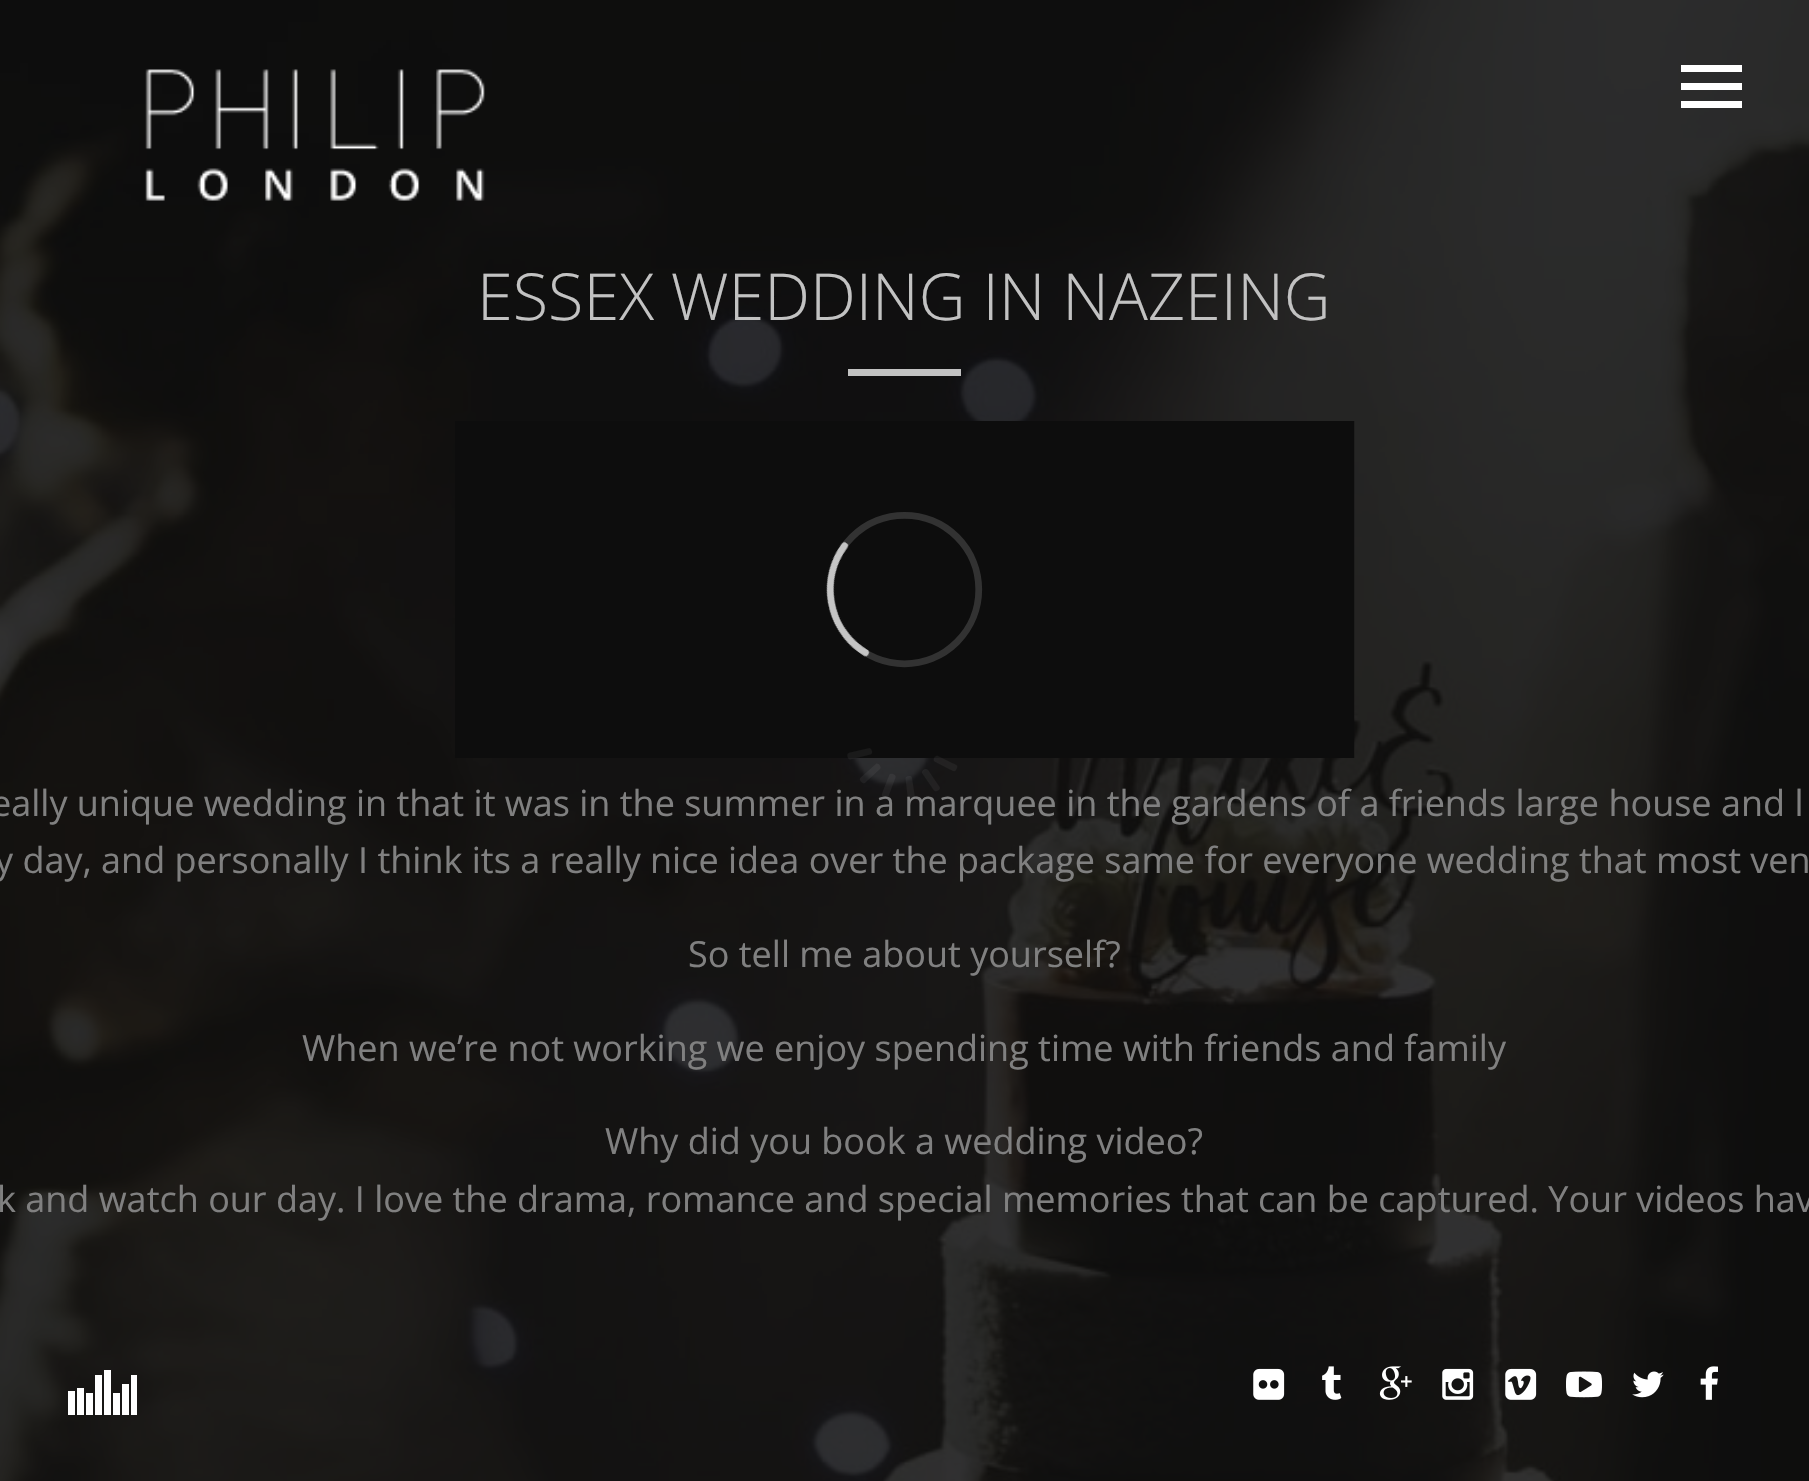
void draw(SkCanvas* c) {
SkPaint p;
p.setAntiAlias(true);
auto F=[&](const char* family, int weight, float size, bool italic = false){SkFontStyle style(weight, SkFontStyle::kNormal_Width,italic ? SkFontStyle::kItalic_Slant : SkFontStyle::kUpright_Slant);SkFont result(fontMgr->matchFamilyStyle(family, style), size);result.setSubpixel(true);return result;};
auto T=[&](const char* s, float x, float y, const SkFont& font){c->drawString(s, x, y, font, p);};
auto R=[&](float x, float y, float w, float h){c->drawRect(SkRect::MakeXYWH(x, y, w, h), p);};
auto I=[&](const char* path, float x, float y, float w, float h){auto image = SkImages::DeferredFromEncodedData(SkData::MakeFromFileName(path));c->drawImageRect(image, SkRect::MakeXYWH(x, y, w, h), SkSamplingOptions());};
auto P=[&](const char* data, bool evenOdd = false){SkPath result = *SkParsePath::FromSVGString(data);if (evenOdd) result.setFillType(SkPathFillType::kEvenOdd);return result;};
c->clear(0xffffffff);
I("2.png",0,0,1809,1481);
I("1.png",145,69,340,132);
p.setColor(0xffffffff);
R(1681,83,61,7);
R(1681,65,61,7);
R(1681,101,61,7);
auto f1 = F("Open Sans",300,64.75);
p.setColor(0xffc2c2c2);
T("ESSEX WEDDING IN NAZEING",477,320,f1);
R(848,369,113,7);
I("3.png",455,421,900,337);
auto f2 = F("Open Sans",400,36);
p.setColor(0xff808080);
T("eally unique wedding in that it was in the summer in a marquee in the gardens of a friends large house and l",-9,816,f2);
T("y day, and personally I think its a really nice idea over the package same for everyone wedding that most ven",-5,873,f2);
T("So tell me about yourself?",688,967,f2);
T("When we’re not working we enjoy spending time with friends and family",302,1061,f2);
T("Why did you book a wedding video?",605,1154,f2);
T("k and watch our day. I love the drama, romance and special memories that can be captured. Your videos hav",-3,1212,f2);
p.setColor(0x0dffffff);
c->drawPath(P("M880 769l-12.5 11.5c-2.5 2.5-4 4-6.5 1c-2.5-3-.5-3.5 2-6l13.5-12c2-.5 5.5 3.5 3.5 5.5zm-9.5-14.5l-16.5 4c-3.5 1-5.5 2-6.5-2c-.5-4 1.5-3.5 5-4.5l17-4c2.5 .5 4 6 1 6.5z"),p);
c->drawPath(P("M938 756l15 7.5c3.5 1.5 5.5 2 3.5 5.5c-1.5 3.5-3 2-6.5 .5l-15.5-8c-2-2 1-7 3.5-5.5z"),p);
c->drawPath(P("M928 770l9.5 14c2 3 4 4 .5 6.5c-3 2-4 0-6-3l-10-14.5c-.5-2.5 4-5.5 6-3zm-16 8l2.5 16.5c0 3.5 1 5.5-3 6c-4 .5-3.5-1.5-4-5l-2-17.5c1-2.5 6.5-3 6.5 0zm-16.5-.5l-6 16c-1 3-1 5.5-5 4c-4-1.5-2.5-3-1.5-6.5l6.5-16.5c1.5-2 7 0 6 3z"),p);
p.setColor(0xffffffff);
R(68,1391,7,24);
R(77,1388,7,27);
R(86,1393,7,22);
R(95,1375,7,40);
R(104,1370,7,45);
R(113,1393,7,22);
R(122,1384,7,31);
R(131,1375,6,40);
I("4.png",1253,1368,32,32);
I("5.png",1322,1366,20,34);
I("6.png",1379,1366,33,34);
I("7.png",1442,1368,32,32);
I("8.png",1505,1368,32,32);
I("9.png",1566,1371,36,27);
I("10.png",1632,1371,32,27);
I("11.png",1700,1366,18,34);
}
